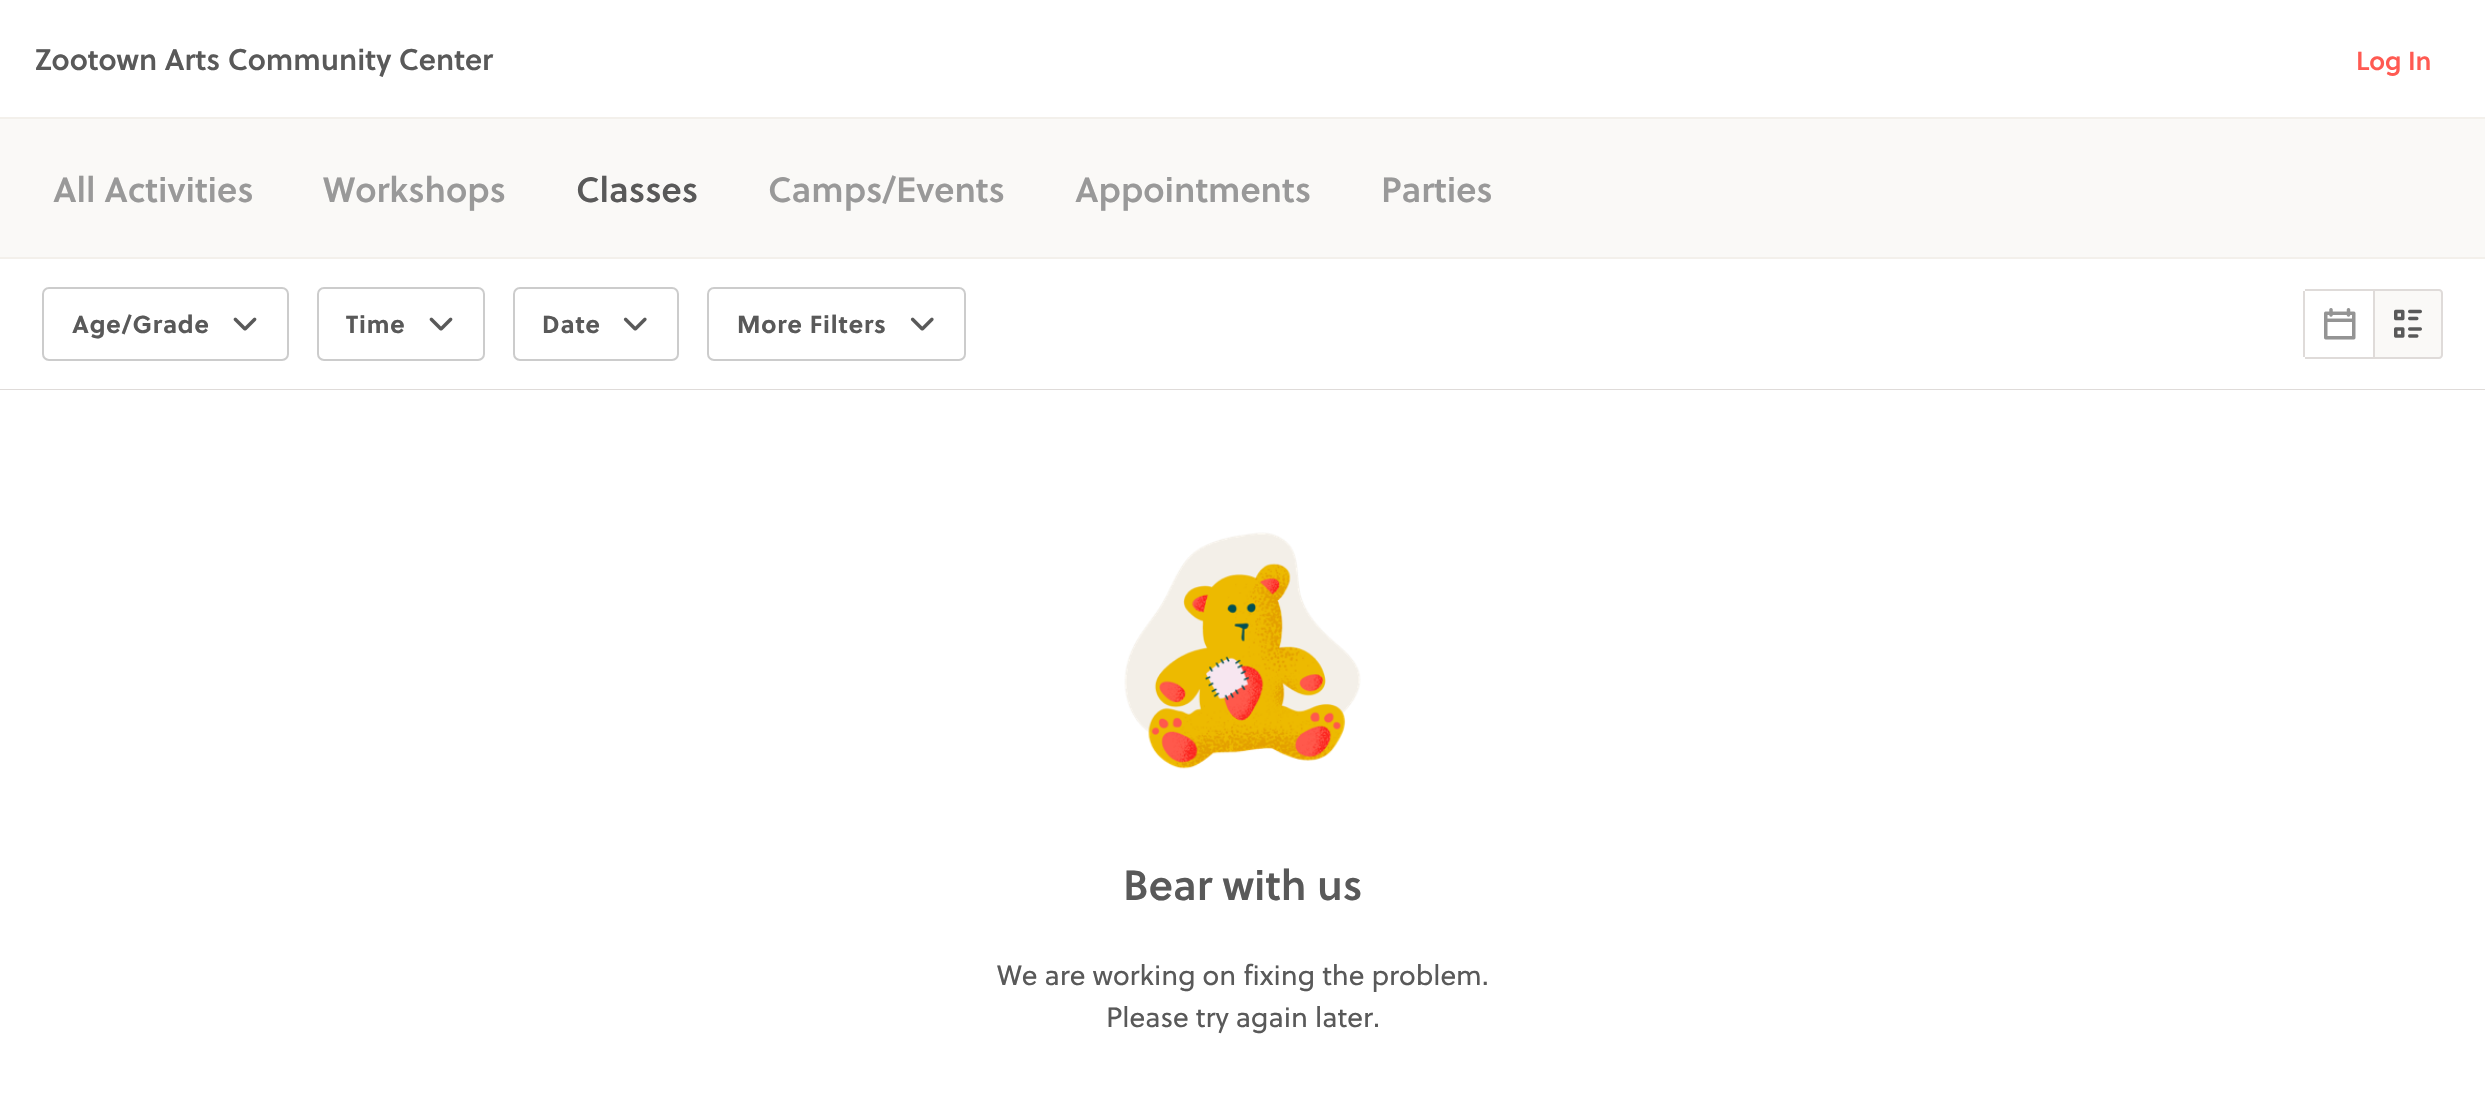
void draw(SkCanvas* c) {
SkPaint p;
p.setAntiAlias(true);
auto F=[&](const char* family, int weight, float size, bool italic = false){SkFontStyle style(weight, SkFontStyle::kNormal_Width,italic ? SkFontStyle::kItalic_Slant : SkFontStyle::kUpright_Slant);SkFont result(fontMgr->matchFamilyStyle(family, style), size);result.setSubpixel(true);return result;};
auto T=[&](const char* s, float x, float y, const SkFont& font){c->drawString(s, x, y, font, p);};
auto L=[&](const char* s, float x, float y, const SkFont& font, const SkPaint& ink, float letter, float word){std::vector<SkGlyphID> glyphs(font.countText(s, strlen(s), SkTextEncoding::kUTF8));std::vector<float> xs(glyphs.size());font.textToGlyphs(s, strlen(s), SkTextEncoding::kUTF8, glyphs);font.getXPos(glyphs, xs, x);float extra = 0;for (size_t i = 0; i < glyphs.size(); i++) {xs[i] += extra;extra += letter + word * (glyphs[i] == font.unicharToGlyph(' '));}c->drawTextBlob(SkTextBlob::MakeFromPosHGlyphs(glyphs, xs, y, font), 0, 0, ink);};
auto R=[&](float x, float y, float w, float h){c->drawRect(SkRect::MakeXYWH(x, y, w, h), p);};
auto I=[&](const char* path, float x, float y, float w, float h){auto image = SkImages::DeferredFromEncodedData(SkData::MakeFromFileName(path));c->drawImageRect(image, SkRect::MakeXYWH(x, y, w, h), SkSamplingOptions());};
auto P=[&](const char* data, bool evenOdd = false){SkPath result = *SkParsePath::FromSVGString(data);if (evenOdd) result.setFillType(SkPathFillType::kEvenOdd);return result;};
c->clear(0xffffffff);
p.setColor(0xfff3f0eb);
R(0,117,2485,2);
auto f1 = F("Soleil",600,29.75);
p.setColor(0xff595959);
T("Zootown Arts Community Center",35,70,f1);
auto f2 = F("Soleil",600,26);
p.setColor(0xffff5a52);
T("Log In",2356,70,f2);
p.setColor(0xfffaf9f7);
R(0,119,2485,138);
p.setColor(0xfff3f0eb);
R(0,257,2485,2);
auto f3 = F("Soleil",600,35);
p.setColor(0xff999999);
T("All Activities",53,202,f3);
T("Workshops",323,202,f3);
p.setColor(0xff595959);
T("Classes",576,202,f3);
p.setColor(0xff999999);
T("Camps/Events",768,202,f3);
T("Appointments",1075,202,f3);
T("Parties",1381,202,f3);
p.setColor(0xffdfdbd9);
R(0,389,2485,1);
p.setStroke(true);
p.setStrokeWidth(2);
p.setColor(0xffcccccc);
c->drawRoundRect(SkRect::MakeXYWH(43,288,245,72),6,6,p);
auto f4 = F("Soleil",700,24.5);
p.setStroke(false);
p.setColor(0xff595959);
L("Age/Grade",72,333,f4,p,.9,0);
I("1.png",233,317,24,14);
p.setStroke(true);
p.setColor(0xffcccccc);
c->drawRoundRect(SkRect::MakeXYWH(318,288,166,72),6,6,p);
p.setStroke(false);
p.setColor(0xff595959);
L("Time",346,333,f4,p,.9,0);
I("1.png",429,317,24,14);
p.setStroke(true);
p.setColor(0xffcccccc);
c->drawRoundRect(SkRect::MakeXYWH(514,288,164,72),6,6,p);
p.setStroke(false);
p.setColor(0xff595959);
L("Date",542,333,f4,p,.9,0);
I("2.png",623,317,24,14);
p.setStroke(true);
p.setColor(0xffcccccc);
c->drawRoundRect(SkRect::MakeXYWH(708,288,257,72),6,6,p);
p.setStroke(false);
p.setColor(0xff595959);
L("More Filters",737,333,f4,p,.9,0);
I("2.png",910,317,24,14);
p.setColor(0xffdfdbd9);
R(2305,289,68,2);
R(2305,357,68,2);
R(2303,291,2,66);
I("3.png",2324,308,32,32);
p.setColor(0xfffaf9f7);
c->drawPath(P("M2374 290h65c1.5 0 3 1.5 3 3v62c0 1.5-1.5 3-3 3h-65z"),p);
p.setStroke(true);
p.setColor(0xffdfdbd9);
c->drawPath(P("M2374 290h65c1.5 0 3 1.5 3 3v62c0 1.5-1.5 3-3 3h-65z"),p);
I("4.png",2394,309,28,29);
I("5.png",1124,532,237,237);
auto f5 = F("Soleil",600,42);
p.setStroke(false);
p.setColor(0xff595959);
T("Bear with us",1123,900,f5);
auto f6 = F("Soleil",400,28);
T("We are working on fixing the problem.",997,985,f6);
T("Please try again later.",1106,1027,f6);
}
